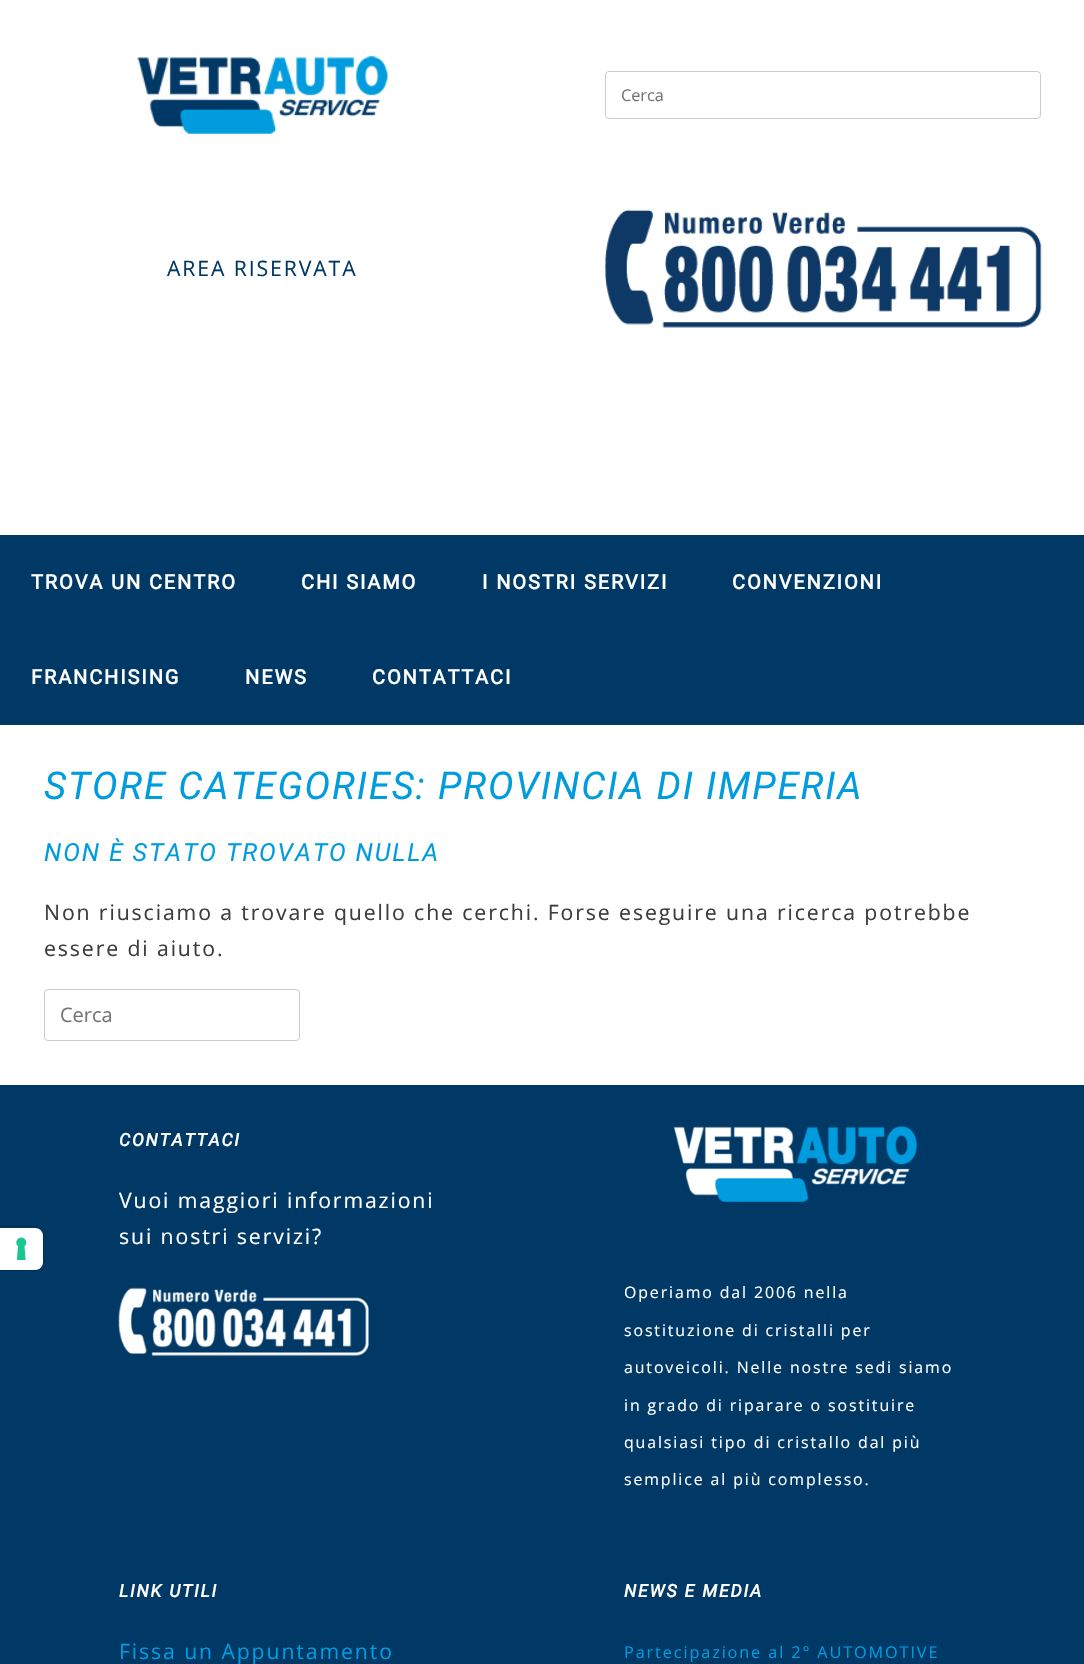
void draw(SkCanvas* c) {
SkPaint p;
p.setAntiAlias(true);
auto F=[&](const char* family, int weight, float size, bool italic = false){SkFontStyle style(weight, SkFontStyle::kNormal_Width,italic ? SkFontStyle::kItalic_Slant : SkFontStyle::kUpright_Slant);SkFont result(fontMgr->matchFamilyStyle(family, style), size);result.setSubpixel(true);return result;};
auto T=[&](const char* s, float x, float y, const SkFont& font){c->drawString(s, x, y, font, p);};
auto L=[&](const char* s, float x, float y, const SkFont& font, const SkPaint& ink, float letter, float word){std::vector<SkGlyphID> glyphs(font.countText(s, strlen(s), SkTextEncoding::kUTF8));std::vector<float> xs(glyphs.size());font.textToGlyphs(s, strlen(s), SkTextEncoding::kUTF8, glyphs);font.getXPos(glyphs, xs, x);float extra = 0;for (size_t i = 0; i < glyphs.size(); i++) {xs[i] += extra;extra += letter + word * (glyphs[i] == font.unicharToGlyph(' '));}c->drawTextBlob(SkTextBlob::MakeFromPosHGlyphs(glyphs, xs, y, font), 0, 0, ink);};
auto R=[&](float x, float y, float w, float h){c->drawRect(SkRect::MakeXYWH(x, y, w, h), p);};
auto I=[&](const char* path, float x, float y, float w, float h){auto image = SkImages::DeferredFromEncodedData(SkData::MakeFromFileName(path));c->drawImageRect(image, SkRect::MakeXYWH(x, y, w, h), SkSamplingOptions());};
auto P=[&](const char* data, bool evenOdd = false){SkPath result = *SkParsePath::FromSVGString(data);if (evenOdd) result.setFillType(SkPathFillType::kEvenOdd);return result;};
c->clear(0xff003866);
p.setStroke(true);
p.setStrokeWidth(1);
p.setColor(0xff003057);
c->drawPath(P("M-.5 1226.5h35.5c4.5 0 8.5 4 8.5 8.5v27c0 4.5-4 8.5-8.5 8.5h-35.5z"),p);
p.setStroke(false);
p.setColor(0xffffffff);
c->drawPath(P("M0 1228h35c4.5 0 8 3.5 8 8v26c0 4.5-3.5 8-8 8h-35z"),p);
I("1.png",16,1237,11,23);
R(0,0,1084,535);
I("2.png",137,56,251,78);
p.setStroke(true);
p.setColor(0xffcccccc);
c->drawRoundRect(SkRect::MakeXYWH(605.5,71.5,435,47),3.5,3.5,p);
auto f1 = F("Open Sans",400,16.25);
p.setStroke(false);
p.setColor(0xff757575);
T("Cerca",621,101,f1);
auto f2 = F("Open Sans",400,21.25);
p.setColor(0xff003866);
L("AREA RISERVATA",167,276,f2,p,1.88,0);
I("3.png",605,209,437,119);
auto f3 = F("Roboto",700,20);
p.setColor(0xffffffff);
L("TROVA UN CENTRO",31,589,f3,p,1.88,0);
L("CHI SIAMO",301,589,f3,p,1.88,0);
L("I NOSTRI SERVIZI",482,589,f3,p,1.88,0);
L("CONVENZIONI",732,589,f3,p,1.88,0);
L("FRANCHISING",31,684,f3,p,1.88,0);
L("NEWS",245,684,f3,p,1.88,0);
L("CONTATTACI",372,684,f3,p,1.88,0);
R(0,725,1084,360);
auto f4 = F("Roboto",400,38.25,true);
p.setColor(0xff009cdd);
L("STORE CATEGORIES: PROVINCIA DI IMPERIA",44,799,f4,p,1.88,0);
auto f5 = F("Roboto",400,25,true);
L("NON È STATO TROVATO NULLA",44,861,f5,p,1.88,0);
p.setColor(0xff3d3d3d);
L("Non riusciamo a trovare quello che cerchi. Forse eseguire una ricerca potrebbe",44,920,f2,p,1.88,0);
L("essere di aiuto.",44,956,f2,p,1.88,0);
p.setStroke(true);
p.setColor(0xffcccccc);
c->drawRoundRect(SkRect::MakeXYWH(44.5,989.5,255,51),3.5,3.5,p);
auto f6 = F("Open Sans",400,20);
p.setStroke(false);
p.setColor(0xff757575);
T("Cerca",60,1022,f6);
auto f7 = F("Roboto",700,17.5,true);
p.setColor(0xffffffff);
L("CONTATTACI",119,1146,f7,p,1.88,0);
L("Vuoi maggiori informazioni",119,1208,f2,p,1.88,0);
L("sui nostri servizi?",119,1244,f2,p,1.88,0);
I("4.png",118,1287,251,70);
I("5.png",673,1126,245,77);
auto f8 = F("Open Sans",400,15.9);
L("Operiamo dal 2006 nella",624,1298,f8,p,1.88,0);
L("sostituzione di cristalli per",624,1336,f8,p,1.88,0);
L("autoveicoli. Nelle nostre sedi siamo",624,1373,f8,p,1.88,0);
L("in grado di riparare o sostituire",624,1411,f8,p,1.88,0);
L("qualsiasi tipo di cristallo dal più",624,1448,f8,p,1.88,0);
L("semplice al più complesso.",624,1485,f8,p,1.88,0);
L("LINK UTILI",119,1597,f7,p,1.88,0);
p.setColor(0xff009cdd);
L("Fissa un Appuntamento",119,1659,f2,p,1.88,0);
p.setColor(0xffffffff);
L("NEWS E MEDIA",624,1597,f7,p,1.88,0);
p.setColor(0xff009cdd);
L("Partecipazione al 2° AUTOMOTIVE",624,1658,f1,p,1.88,0);
}
